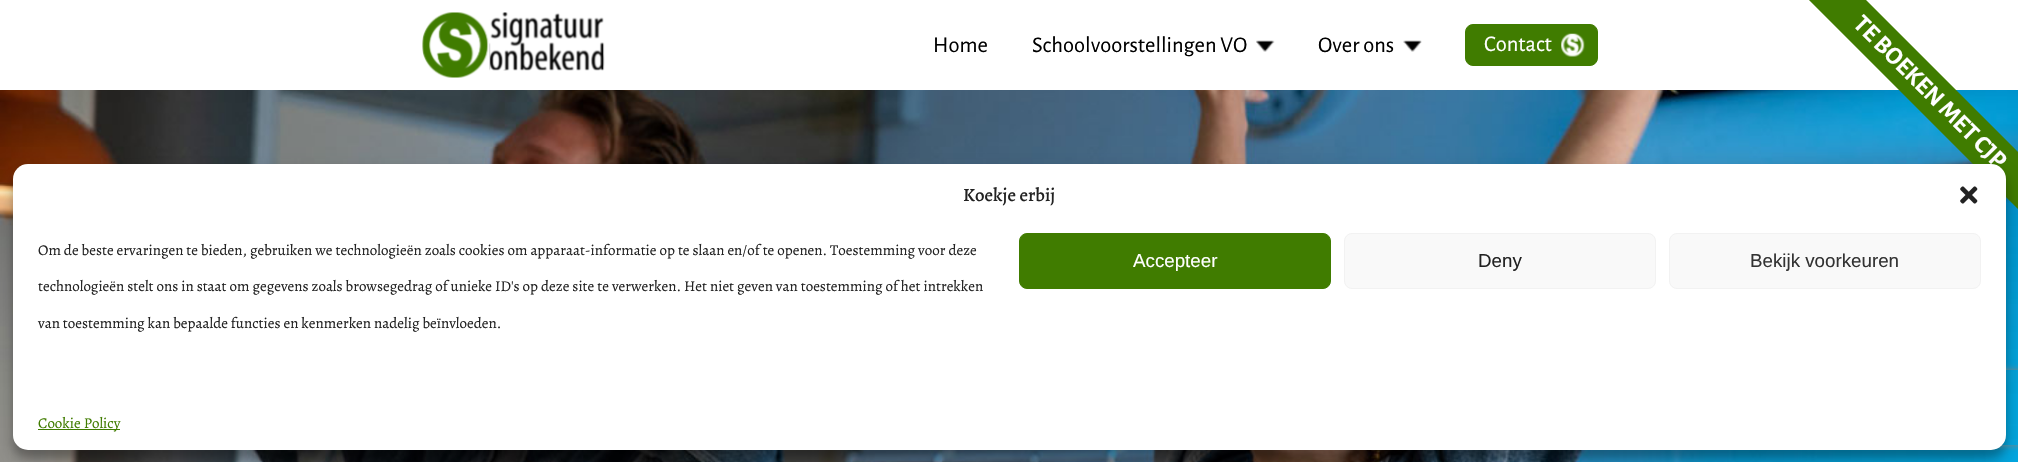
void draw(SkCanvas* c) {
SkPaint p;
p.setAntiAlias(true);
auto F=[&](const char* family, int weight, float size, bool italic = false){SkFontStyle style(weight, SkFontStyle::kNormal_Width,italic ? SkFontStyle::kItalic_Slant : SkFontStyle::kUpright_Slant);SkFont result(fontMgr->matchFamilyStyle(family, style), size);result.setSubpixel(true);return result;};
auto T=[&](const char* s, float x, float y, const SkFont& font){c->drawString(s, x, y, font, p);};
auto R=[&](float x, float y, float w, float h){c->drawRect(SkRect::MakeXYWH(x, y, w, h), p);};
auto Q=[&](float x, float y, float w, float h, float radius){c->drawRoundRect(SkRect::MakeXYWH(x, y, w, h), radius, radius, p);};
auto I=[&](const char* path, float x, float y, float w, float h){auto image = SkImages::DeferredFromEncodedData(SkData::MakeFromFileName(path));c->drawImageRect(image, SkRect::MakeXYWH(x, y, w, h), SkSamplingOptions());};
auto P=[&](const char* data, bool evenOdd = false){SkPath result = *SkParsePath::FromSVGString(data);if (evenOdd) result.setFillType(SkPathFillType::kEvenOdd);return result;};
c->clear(0xffffffff);
I("1.png",422,12,183,66);
auto f1 = F("Alegreya Sans",400,22.5);
p.setColor(0xff000000);
T("Home",933,52,f1);
T("Schoolvoorstellingen VO",1032,52,f1);
I("2.png",1256,40,19,12);
T("Over ons",1318,52,f1);
I("3.png",1403,40,19,12);
p.setColor(0xff407c00);
c->drawRoundRect(SkRect::MakeXYWH(1465.5,24.5,132,41),7.5,7.5,p);
p.setStroke(true);
p.setStrokeWidth(1);
c->drawRoundRect(SkRect::MakeXYWH(1465.5,24.5,132,41),7.5,7.5,p);
p.setStroke(false);
p.setColor(0xffffffff);
T("Contact",1484,51,f1);
I("4.png",1561,33,24,24);
I("5.png",0,90,2018,372);
p.setColor(0xff407c00);
c->drawPath(P("M1834-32l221 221l-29 28l-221-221z"),p);
p.setStroke(true);
p.setStrokeWidth(1.3);
c->drawPath(P("M1833.5-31l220 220l-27 27l-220-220z"),p);
auto f2 = F("Alegreya Sans",700,25);
p.setStroke(false);
p.setColor(0xffffffff);
c->save();
c->rotate(45,1852,25);
T("TE BOEKEN MET CJP",1852,25,f2);
c->restore();
p.setColor(0x3b000000);
p.setMaskFilter(SkMaskFilter::MakeBlur(kNormal_SkBlurStyle, 4));
c->drawRoundRect(SkRect::MakeXYWH(13,171,1993,287),15,15,p);
p.setMaskFilter(nullptr);
p.setColor(0x30000000);
p.setMaskFilter(SkMaskFilter::MakeBlur(kNormal_SkBlurStyle, 12.5));
c->drawRoundRect(SkRect::MakeXYWH(13,176,1993,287),15,15,p);
p.setMaskFilter(nullptr);
c->save();
c->clipPath(P("M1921 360h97v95h-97zm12.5 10h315c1.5 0 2.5 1 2.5 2.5v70c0 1.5-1 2.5-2.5 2.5h-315c-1.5 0-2.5-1-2.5-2.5v-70c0-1.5 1-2.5 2.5-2.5z",true),true);
p.setColor(0xff808080);
p.setMaskFilter(SkMaskFilter::MakeBlur(kNormal_SkBlurStyle, 3));
c->drawRoundRect(SkRect::MakeXYWH(1931,370,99,75),2.5,2.5,p);
p.setMaskFilter(nullptr);
c->restore();
p.setColor(0xffffffff);
Q(13,164,1993,286,15);
auto f3 = F("Alegreya",500,18.75);
p.setColor(0xff222222);
T("Koekje erbij",963,201,f3);
I("6.png",1960,186,18,18);
auto f4 = F("Alegreya",400,15);
T("Om de beste ervaringen te bieden, gebruiken we technologieën zoals cookies om apparaat-informatie op te slaan en/of te openen. Toestemming voor deze",38,255,f4);
T("technologieën stelt ons in staat om gegevens zoals browsegedrag of unieke ID's op deze site te verwerken. Het niet geven van toestemming of het intrekken",38,291,f4);
T("van toestemming kan bepaalde functies en kenmerken nadelig beïnvloeden.",38,328,f4);
p.setColor(0xff407c00);
c->drawRoundRect(SkRect::MakeXYWH(1019.5,233.5,311,55),7.5,7.5,p);
p.setStroke(true);
p.setStrokeWidth(1);
c->drawRoundRect(SkRect::MakeXYWH(1019.5,233.5,311,55),7.5,7.5,p);
auto f5 = F("Liberation Sans",400,18.75);
p.setStroke(false);
p.setColor(0xffffffff);
T("Accepteer",1133,267,f5);
p.setColor(0xfff9f9f9);
c->drawRoundRect(SkRect::MakeXYWH(1344.5,233.5,311,55),7.5,7.5,p);
p.setStroke(true);
p.setColor(0xfff2f2f2);
c->drawRoundRect(SkRect::MakeXYWH(1344.5,233.5,311,55),7.5,7.5,p);
p.setStroke(false);
p.setColor(0xff222222);
T("Deny",1478,267,f5);
p.setColor(0xfff9f9f9);
c->drawRoundRect(SkRect::MakeXYWH(1669.5,233.5,311,55),7.5,7.5,p);
p.setStroke(true);
p.setColor(0xfff2f2f2);
c->drawRoundRect(SkRect::MakeXYWH(1669.5,233.5,311,55),7.5,7.5,p);
p.setStroke(false);
p.setColor(0xff333333);
T("Bekijk voorkeuren",1750,267,f5);
p.setColor(0xff407c00);
R(38,429,82,1);
T("Cookie Policy",38,428,f4);
}
